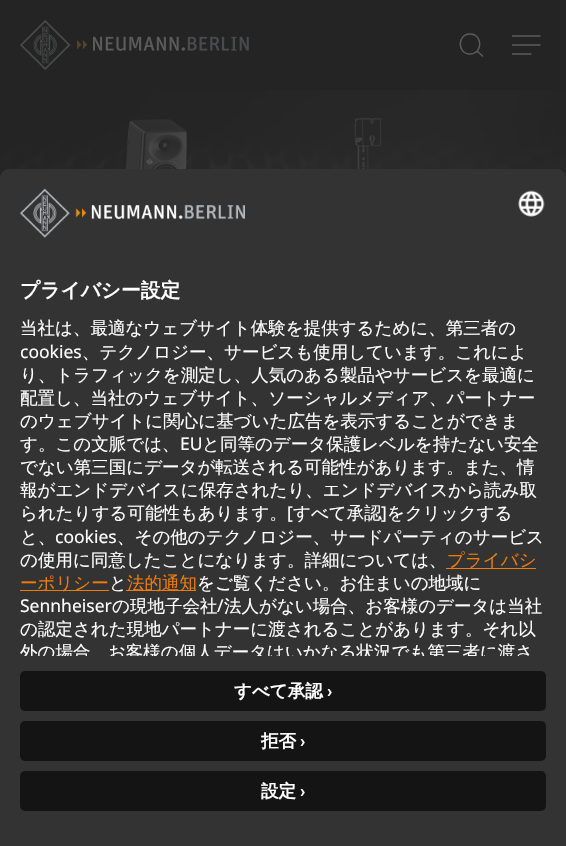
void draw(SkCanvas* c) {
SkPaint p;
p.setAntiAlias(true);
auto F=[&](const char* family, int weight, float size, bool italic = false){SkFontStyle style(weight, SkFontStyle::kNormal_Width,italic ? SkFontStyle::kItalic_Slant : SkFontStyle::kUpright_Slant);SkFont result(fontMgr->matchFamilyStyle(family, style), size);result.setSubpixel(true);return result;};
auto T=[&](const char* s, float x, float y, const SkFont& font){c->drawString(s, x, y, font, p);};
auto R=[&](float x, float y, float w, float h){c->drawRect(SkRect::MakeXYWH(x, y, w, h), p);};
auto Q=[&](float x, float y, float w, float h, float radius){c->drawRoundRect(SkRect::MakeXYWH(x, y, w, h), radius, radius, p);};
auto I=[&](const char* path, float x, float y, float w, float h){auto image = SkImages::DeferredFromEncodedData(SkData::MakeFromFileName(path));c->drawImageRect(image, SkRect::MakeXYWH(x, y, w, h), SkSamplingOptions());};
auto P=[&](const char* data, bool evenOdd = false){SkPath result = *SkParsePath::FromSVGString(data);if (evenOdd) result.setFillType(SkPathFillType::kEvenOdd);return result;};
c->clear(0xff242424);
I("1.png",20,20,229,50);
p.setStroke(true);
p.setStrokeWidth(1.5);
p.setStrokeCap(SkPaint::kRound_Cap);
p.setStrokeJoin(SkPaint::kRound_Join);
p.setColor(0xff5b5b5b);
c->drawPath(P("M470 54c13 0 13-20 0-20c-13 0-13 20 0 20zm12.5 2l-5.5-5"),p);
p.setStrokeWidth(1.4);
c->drawPath(P("M512.5 45h27.5m-27.5-9h27.5m-27.5 18h18.5"),p);
I("2.png",0,90,566,89);
I("3.png",126,118,256,51);
p.setStroke(false);
p.setColor(0xff333333);
c->drawPath(P("M10 169h546c5.5 0 10 4.5 10 10v667h-566v-667c0-5.5 4.5-10 10-10z"),p);
c->drawPath(P("M10 169h546c5.5 0 10 4.5 10 10v477h-566v-477c0-5.5 4.5-10 10-10z"),p);
I("4.png",20,188,225,50);
I("5.png",518,190,27,27);
auto f1 = F("WenQuanYi Zen Hei",700,19.75);
p.setColor(0xffffffff);
T("プライバシー設定",20,297,f1);
auto f2 = F("WenQuanYi Zen Hei",500,17.5);
T("当社は、最適なウェブサイト体験を提供するために、第三者の",20,334,f2);
auto f3 = F("Noto Sans",400,17.5);
T("cookies",20,358,f3);
T("、テクノロジー、サービスも使用しています。これによ",82,358,f2);
T("り、トラフィックを測定し、人気のある製品やサービスを最適に",20,381,f2);
T("配置し、当社のウェブサイト、ソーシャルメディア、パートナー",20,404,f2);
T("のウェブサイトに関心に基づいた広告を表示することができま",20,427,f2);
T("す。この文脈では、",20,450,f2);
T("EU",180,450,f3);
T("と同等のデータ保護レベルを持たない安全",202,450,f2);
T("でない第三国にデータが転送される可能性があります。また、情",20,473,f2);
T("報がエンドデバイスに保存されたり、エンドデバイスから読み取",20,496,f2);
T("られたりする可能性もあります。",20,519,f2);
T("[",287,519,f3);
T("すべて承認",293,519,f2);
T("]",381,519,f3);
T("をクリックする",387,519,f2);
T("と、",20,543,f2);
T("cookies",55,543,f3);
T("、その他のテクノロジー、サードパーティのサービス",117,543,f2);
T("の使用に同意したことになります。詳細については、",20,566,f2);
p.setColor(0xffef7b0b);
R(446,568,90,1);
T("プライバシ",447,566,f2);
R(20,590,89,1);
T("ーポリシー",20,589,f2);
p.setColor(0xffffffff);
T("と",109,589,f2);
p.setColor(0xffef7b0b);
R(126,590,70,1);
T("法的通知",127,589,f2);
p.setColor(0xffffffff);
T("をご覧ください。お住まいの地域に",197,589,f2);
T("Sennheiser",20,612,f3);
T("の現地子会社",112,612,f2);
T("/",217,612,f3);
T("法人がない場合、お客様のデータは当社",224,612,f2);
T("の認定された現地パートナーに渡されることがあります。それ以",20,635,f2);
c->save();
c->clipPath(P("M10 169h546c5.5 0 10 4.5 10 10v477h-566v-477c0-5.5 4.5-10 10-10z"),true);
T("外の場合、お客様の個人データはいかなる状況でも第三者に渡さ",20,658,f2);
c->restore();
p.setColor(0xff141414);
Q(20,671,526,40,5);
auto f4 = F("WenQuanYi Zen Hei",700,17.5);
p.setColor(0xffffffff);
T("すべて承認",234,697,f4);
auto f5 = F("Roboto",700,17.5);
T("›",327,697,f5);
p.setColor(0xff141414);
Q(20,721,526,40,5);
p.setColor(0xffffffff);
T("拒否",261,747,f4);
T("›",300,747,f5);
p.setColor(0xff141414);
Q(20,771,526,40,5);
p.setColor(0xffffffff);
T("設定",261,797,f4);
T("›",300,797,f5);
}
